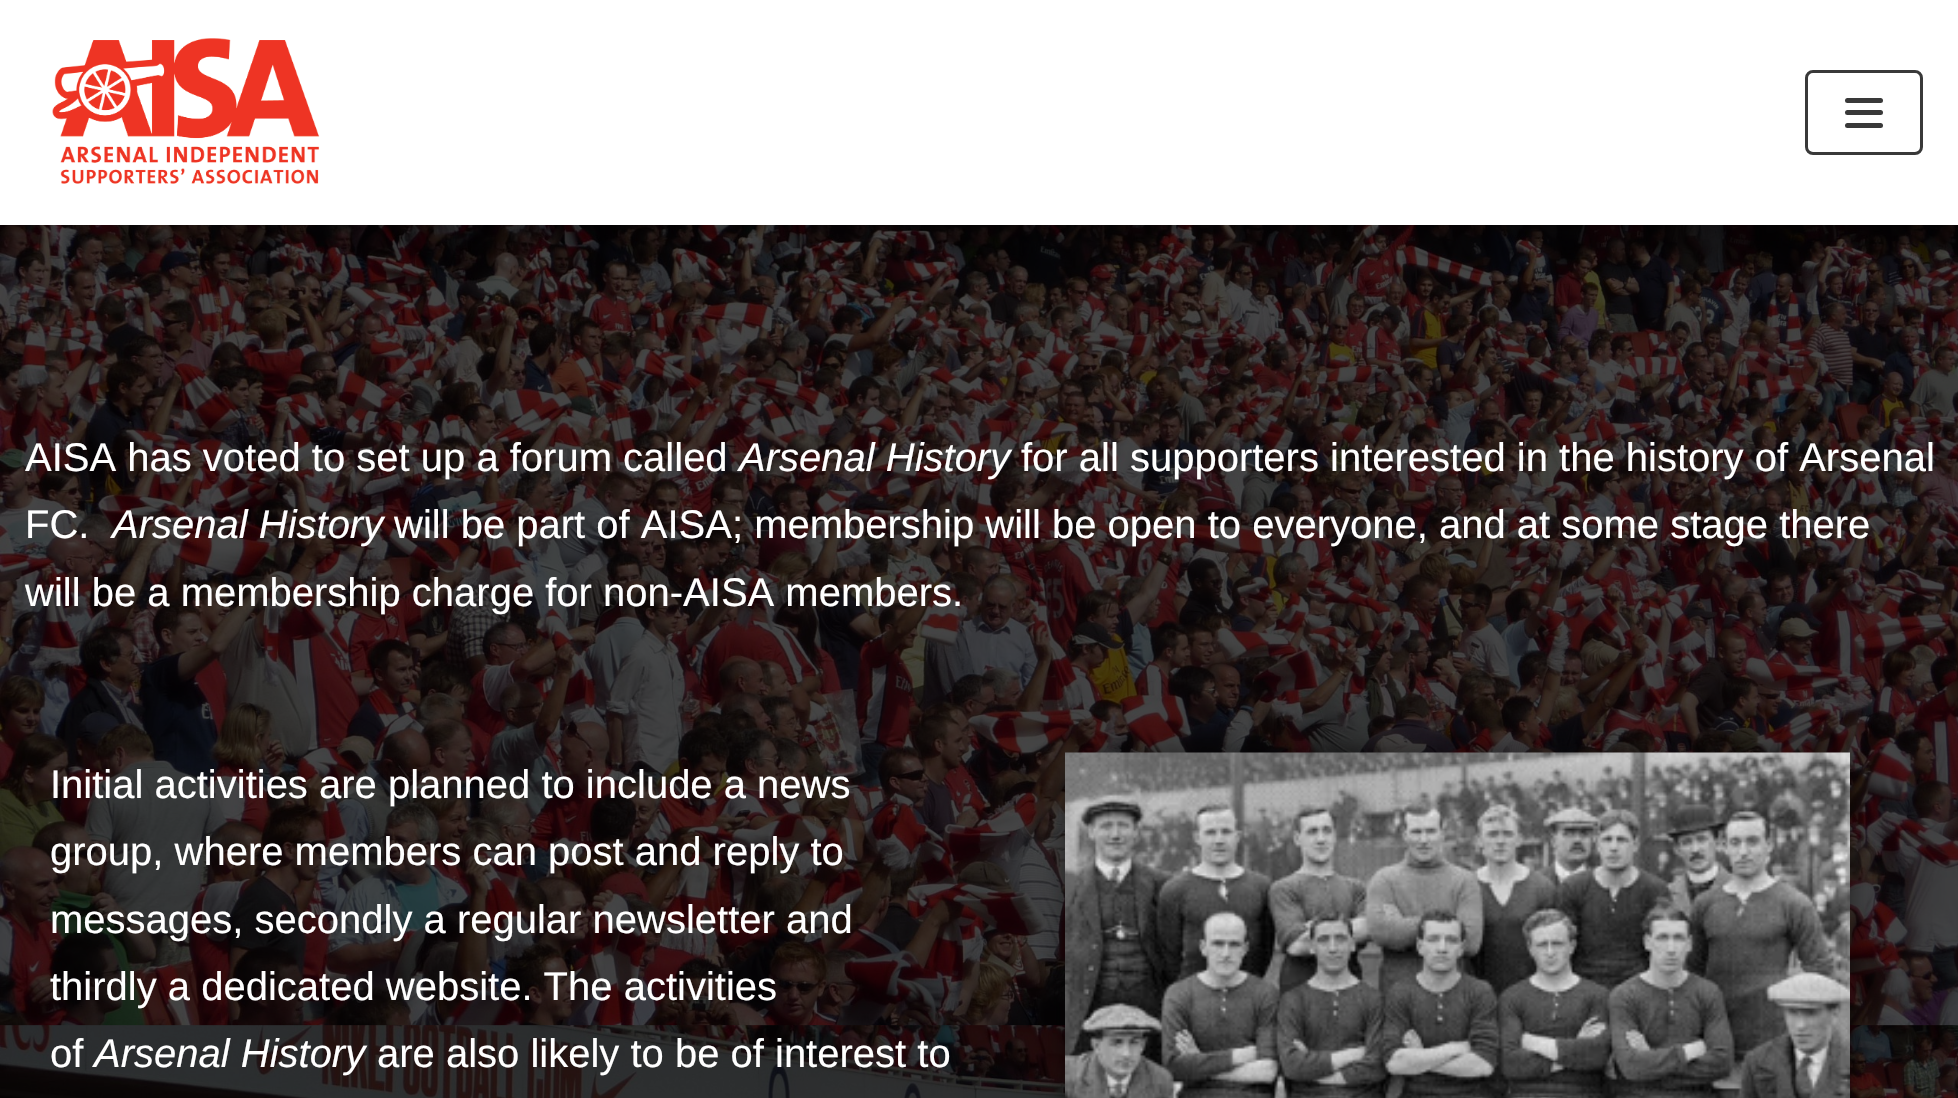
void draw(SkCanvas* c) {
SkPaint p;
p.setAntiAlias(true);
auto F=[&](const char* family, int weight, float size, bool italic = false){SkFontStyle style(weight, SkFontStyle::kNormal_Width,italic ? SkFontStyle::kItalic_Slant : SkFontStyle::kUpright_Slant);SkFont result(fontMgr->matchFamilyStyle(family, style), size);result.setSubpixel(true);return result;};
auto T=[&](const char* s, float x, float y, const SkFont& font){c->drawString(s, x, y, font, p);};
auto Q=[&](float x, float y, float w, float h, float radius){c->drawRoundRect(SkRect::MakeXYWH(x, y, w, h), radius, radius, p);};
auto I=[&](const char* path, float x, float y, float w, float h){auto image = SkImages::DeferredFromEncodedData(SkData::MakeFromFileName(path));c->drawImageRect(image, SkRect::MakeXYWH(x, y, w, h), SkSamplingOptions());};
c->clear(0xffffffff);
I("1.png",52,38,268,146);
p.setStroke(true);
p.setStrokeWidth(3);
p.setColor(0xff393939);
c->drawRoundRect(SkRect::MakeXYWH(1806.5,71.5,115,82),6.5,6.5,p);
p.setStroke(false);
Q(1845,98,38,5,2.5);
Q(1845,110,38,5,2.5);
Q(1845,123,38,5,2.5);
I("2.png",0,225,1958,873);
auto f1 = F("Liberation Sans",400,40);
p.setColor(0xffffffff);
T("AISA has voted to set up a forum called",25,471,f1);
auto f2 = F("Liberation Sans",400,40,true);
T("Arsenal History",739,471,f2);
T("for all supporters interested in the history of Arsenal",1021,471,f1);
T("FC.",25,538,f1);
T("Arsenal History",112,538,f2);
T("will be part of AISA; membership will be open to everyone, and at some stage there",394,538,f1);
T("will be a membership charge for non-AISA members.",25,606,f1);
T("Initial activities are planned to include a news",50,798,f1);
T("group, where members can post and reply to",50,865,f1);
T("messages, secondly a regular newsletter and",50,933,f1);
T("thirdly a dedicated website. The activities",50,1000,f1);
T("of",50,1067,f1);
T("Arsenal History",94,1067,f2);
T("are also likely to be of interest to",377,1067,f1);
p.setColor(0x80000000);
p.setMaskFilter(SkMaskFilter::MakeBlur(kNormal_SkBlurStyle, 12.5));
c->drawRect(SkRect::MakeXYWH(1065,753,785,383),p);
p.setMaskFilter(nullptr);
I("3.png",1065,752,785,346);
}
